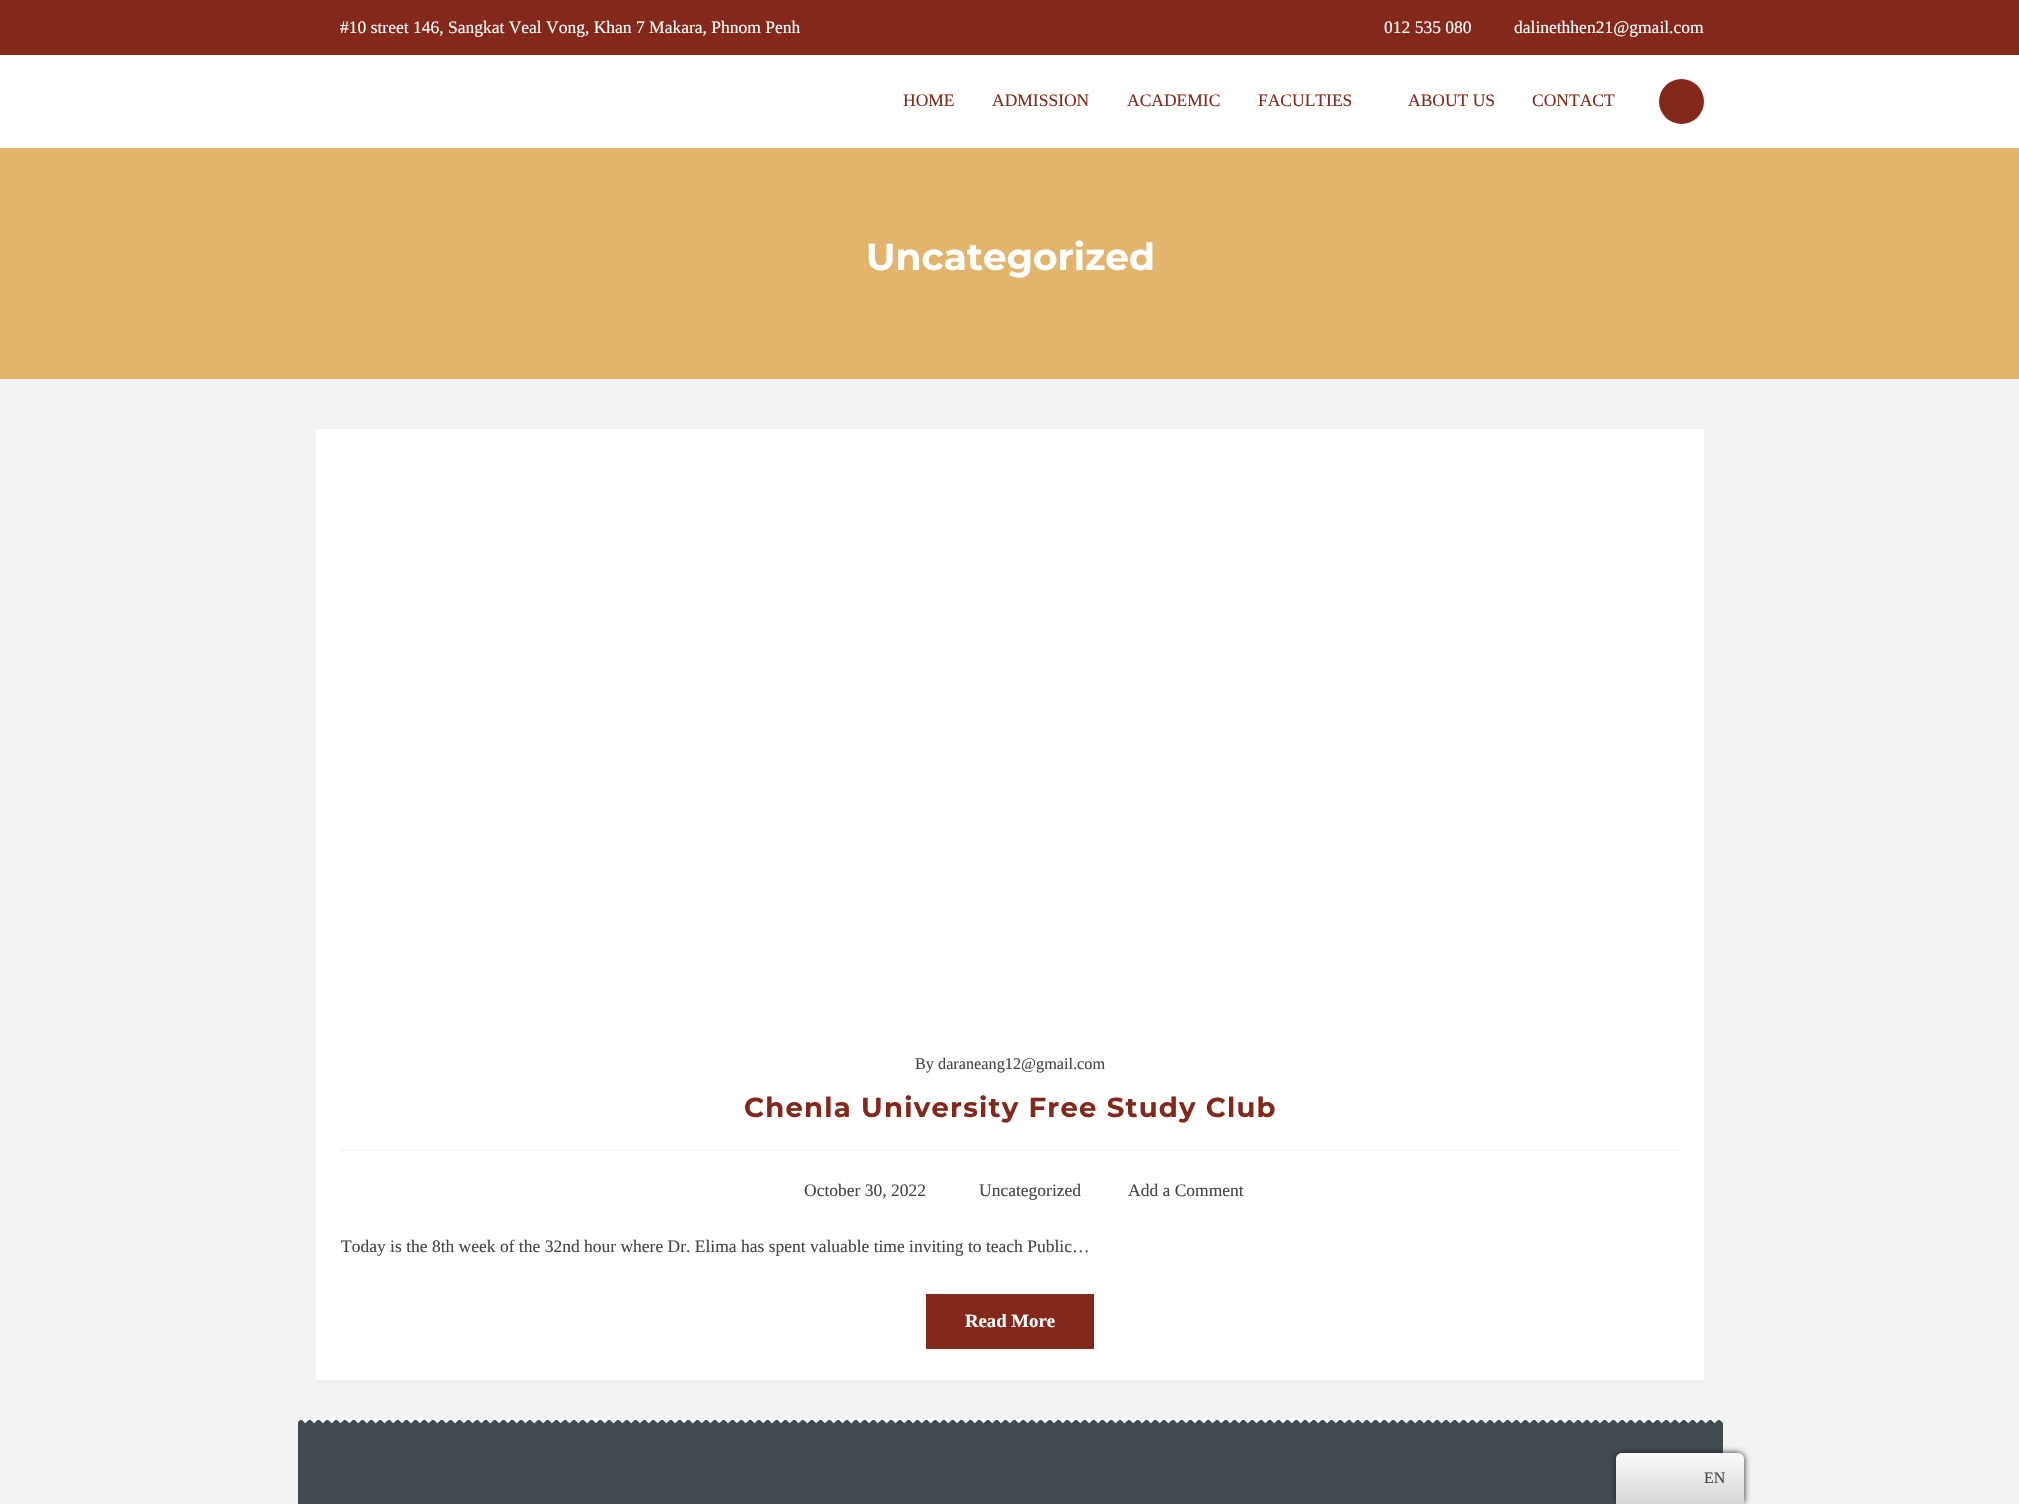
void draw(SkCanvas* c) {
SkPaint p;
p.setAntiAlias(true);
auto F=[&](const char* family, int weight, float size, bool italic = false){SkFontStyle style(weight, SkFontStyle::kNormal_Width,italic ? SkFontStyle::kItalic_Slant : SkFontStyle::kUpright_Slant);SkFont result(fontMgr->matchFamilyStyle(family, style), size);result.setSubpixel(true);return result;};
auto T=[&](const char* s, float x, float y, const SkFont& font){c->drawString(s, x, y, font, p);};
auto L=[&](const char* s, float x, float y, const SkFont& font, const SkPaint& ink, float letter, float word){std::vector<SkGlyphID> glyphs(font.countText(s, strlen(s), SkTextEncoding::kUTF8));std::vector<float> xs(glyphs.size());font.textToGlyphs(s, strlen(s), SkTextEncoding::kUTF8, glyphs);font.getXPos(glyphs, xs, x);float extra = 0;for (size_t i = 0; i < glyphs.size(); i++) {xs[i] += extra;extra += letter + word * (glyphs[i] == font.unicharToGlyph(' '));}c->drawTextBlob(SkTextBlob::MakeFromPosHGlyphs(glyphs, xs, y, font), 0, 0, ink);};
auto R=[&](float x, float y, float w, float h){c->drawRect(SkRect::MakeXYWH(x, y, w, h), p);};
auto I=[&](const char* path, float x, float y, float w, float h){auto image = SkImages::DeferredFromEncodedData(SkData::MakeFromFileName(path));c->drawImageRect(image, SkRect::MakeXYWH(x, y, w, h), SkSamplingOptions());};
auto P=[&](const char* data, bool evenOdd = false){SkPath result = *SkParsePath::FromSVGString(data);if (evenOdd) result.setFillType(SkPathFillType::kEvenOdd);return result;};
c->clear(0xfff3f3f3);
p.setColor(0xffffffff);
R(0,55,2019,93);
p.setColor(0xff84281b);
R(0,0,2019,55);
auto f1 = F("Liberation Serif",400,17.5);
p.setColor(0xffffffff);
T("#10 street 146, Sangkat Veal Vong, Khan 7 Makara, Phnom Penh",340,33,f1);
T("012 535 080",1384,33,f1);
T("dalinethhen21@gmail.com",1514,33,f1);
p.setColor(0xff84281b);
T("HOME",903,106,f1);
T("ADMISSION",992,106,f1);
T("ACADEMIC",1127,106,f1);
T("FACULTIES",1258,106,f1);
T("ABOUT US",1408,106,f1);
T("CONTACT",1532,106,f1);
c->drawCircle(1681.5,101.5,22.5,p);
p.setColor(0xffe3b46c);
R(0,148,2019,231);
auto f2 = F("Montserrat",700,37.5);
p.setColor(0xffffffff);
T("Uncategorized",866,270,f2);
R(316,429,1388,951);
p.setColor(0xffefefef);
R(316,1380,1388,3);
auto f3 = F("Liberation Serif",400,16.25);
p.setColor(0xff444444);
T("By daraneang12@gmail.com",915,1069,f3);
p.setColor(0xffefefef);
R(341,1150,1338,1);
auto f4 = F("Montserrat",700,27.5);
p.setColor(0xff84281b);
L("Chenla University Free Study Club",744,1117,f4,p,1.25,0);
p.setColor(0xff444444);
T("October 30, 2022",804,1196,f1);
T("Uncategorized",979,1196,f1);
T("Add a Comment",1128,1196,f1);
T("Today is the 8th week of the 32nd hour where Dr. Elima has spent valuable time inviting to teach Public…",341,1252,f1);
p.setColor(0xff84281b);
R(926,1294,168,55);
auto f5 = F("Liberation Serif",700,18.75);
p.setColor(0xffffffff);
T("Read More",965,1327,f5);
p.setColor(0xff414b4f);
R(298,1420,1425,84);
I("1.png",298,1419,1425,5);
p.setColor(0xff212121);
p.setMaskFilter(SkMaskFilter::MakeBlur(kNormal_SkBlurStyle, 3));
c->drawRoundRect(SkRect::MakeXYWH(1616,1453,128,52),6,6,p);
p.setMaskFilter(nullptr);
{
const SkColor colors[] = {0xffd6d6d6,0xfffafafa};
const float stops[] = {0,1};
const SkPoint ends[] = {{1680,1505}, {1680,1453}};
p.setShader(SkGradientShader::MakeLinear(ends, colors, stops, 2, SkTileMode::kClamp));
p.setAlpha(255);
}
c->drawPath(P("M1622 1453h116c3.5 0 6 2.5 6 6v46h-128v-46c0-3.5 2.5-6 6-6z"),p);
auto f6 = F("Liberation Serif",400,16);
p.setShader(nullptr);
p.setColor(0xff444444);
T("EN",1704,1483,f6);
}
